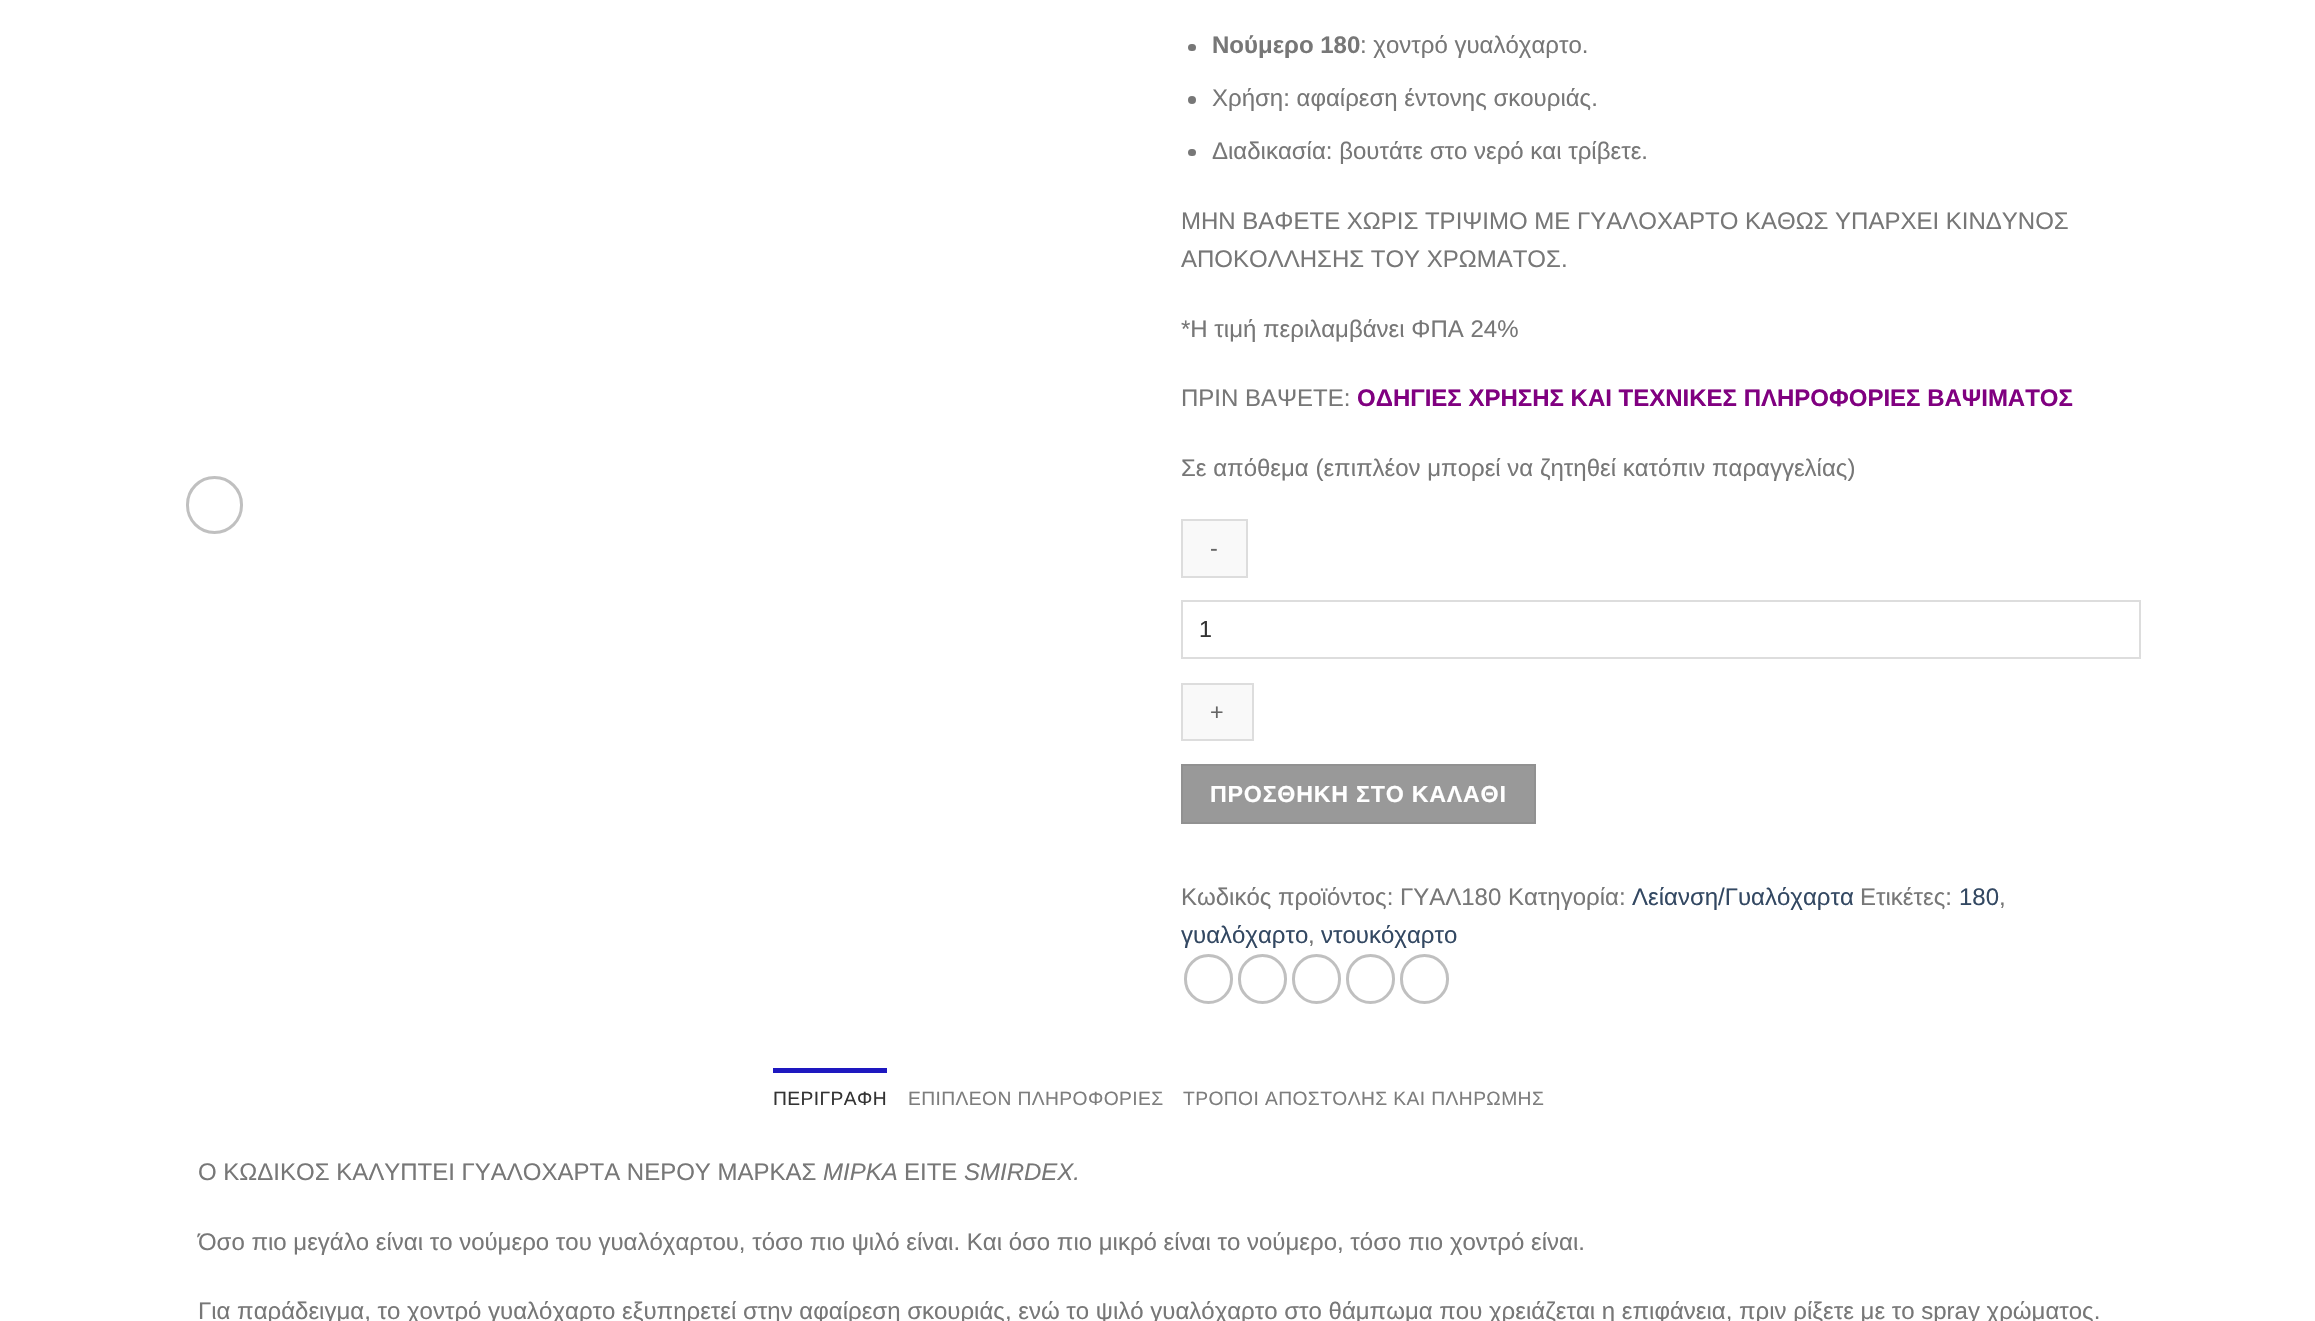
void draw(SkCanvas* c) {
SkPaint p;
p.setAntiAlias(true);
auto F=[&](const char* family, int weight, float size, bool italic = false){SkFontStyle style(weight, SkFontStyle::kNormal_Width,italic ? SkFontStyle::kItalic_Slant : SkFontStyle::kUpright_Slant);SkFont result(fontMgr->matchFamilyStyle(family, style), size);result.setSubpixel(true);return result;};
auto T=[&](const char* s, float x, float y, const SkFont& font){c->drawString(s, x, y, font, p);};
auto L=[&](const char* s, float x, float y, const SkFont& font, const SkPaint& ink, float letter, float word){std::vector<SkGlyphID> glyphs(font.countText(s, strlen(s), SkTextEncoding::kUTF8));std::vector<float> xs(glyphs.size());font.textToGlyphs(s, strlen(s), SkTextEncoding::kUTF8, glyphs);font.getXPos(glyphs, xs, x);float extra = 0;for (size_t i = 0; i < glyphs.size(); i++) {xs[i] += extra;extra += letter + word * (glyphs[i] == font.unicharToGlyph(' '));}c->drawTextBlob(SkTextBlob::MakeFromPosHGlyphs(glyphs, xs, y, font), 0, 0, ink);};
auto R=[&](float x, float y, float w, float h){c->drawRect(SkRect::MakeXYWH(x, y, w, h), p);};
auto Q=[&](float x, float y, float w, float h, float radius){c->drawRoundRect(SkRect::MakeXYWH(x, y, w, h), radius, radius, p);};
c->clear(0xffffffff);
p.setStroke(true);
p.setStrokeWidth(3);
p.setColor(0xffc0c0c0);
c->drawRoundRect(SkRect::MakeXYWH(187.5,477.5,54,55),27,27,p);
p.setStroke(false);
p.setColor(0xff777777);
Q(1188,44,8,7,3.5);
auto f1 = F("Liberation Sans",700,24);
T("Νούμερο 180",1212,53,f1);
auto f2 = F("Liberation Sans",400,24);
T(": χοντρό γυαλόχαρτο.",1360,53,f2);
c->drawCircle(1192,100,4,p);
T("Χρήση: αφαίρεση έντονης σκουριάς.",1212,106,f2);
Q(1188,149,8,7,3.5);
T("Διαδικασία: βουτάτε στο νερό και τρίβετε.",1212,159,f2);
T("ΜΗΝ ΒΑΦΕΤΕ ΧΩΡΙΣ ΤΡΙΨΙΜΟ ΜΕ ΓΥΑΛΟΧΑΡΤΟ ΚΑΘΩΣ ΥΠΑΡΧΕΙ ΚΙΝΔΥΝΟΣ",1181,229,f2);
T("ΑΠΟΚΟΛΛΗΣΗΣ ΤΟΥ ΧΡΩΜΑΤΟΣ.",1181,267,f2);
T("*Η τιμή περιλαμβάνει ΦΠΑ 24%",1181,337,f2);
T("ΠΡΙΝ ΒΑΨΕΤΕ:",1181,406,f2);
p.setColor(0xff800080);
T("ΟΔΗΓΙΕΣ ΧΡΗΣΗΣ ΚΑΙ ΤΕΧΝΙΚΕΣ ΠΛΗΡΟΦΟΡΙΕΣ ΒΑΨΙΜΑΤΟΣ",1357,406,f1);
p.setColor(0xff777777);
T("Σε απόθεμα (επιπλέον μπορεί να ζητηθεί κατόπιν παραγγελίας)",1181,476,f2);
p.setColor(0xfff9f9f9);
c->drawRect(SkRect::MakeXYWH(1182,520,65,57),p);
p.setStroke(true);
p.setStrokeWidth(2);
p.setColor(0xffdddddd);
c->drawRect(SkRect::MakeXYWH(1182,520,65,57),p);
auto f3 = F("Liberation Sans",400,23.25);
p.setStroke(false);
p.setColor(0xff666666);
L("-",1210,556,f3,p,.75,0);
p.setStroke(true);
p.setColor(0xffdddddd);
c->drawRect(SkRect::MakeXYWH(1182,601,958,57),p);
p.setStroke(false);
p.setColor(0xff333333);
T("1",1199,637,f3);
p.setColor(0xfff9f9f9);
c->drawRect(SkRect::MakeXYWH(1182,684,71,56),p);
p.setStroke(true);
p.setColor(0xffdddddd);
c->drawRect(SkRect::MakeXYWH(1182,684,71,56),p);
p.setStroke(false);
p.setColor(0xff666666);
L("+",1210,720,f3,p,.75,0);
p.setColor(0xff999999);
c->drawRect(SkRect::MakeXYWH(1182,765,353,58),p);
p.setStroke(true);
p.setColor(0xff919191);
c->drawRect(SkRect::MakeXYWH(1182,765,353,58),p);
auto f4 = F("Liberation Sans",700,23.25);
p.setStroke(false);
p.setColor(0xffffffff);
L("ΠΡΟΣΘΗΚΗ ΣΤΟ ΚΑΛΑΘΙ",1210,802,f4,p,.75,0);
p.setColor(0xff777777);
T("Κωδικός προϊόντος: ΓΥΑΛ180 Κατηγορία:",1181,905,f2);
p.setColor(0xff334862);
T("Λείανση/Γυαλόχαρτα",1632,905,f2);
p.setColor(0xff777777);
T("Ετικέτες:",1860,905,f2);
p.setColor(0xff334862);
T("180",1959,905,f2);
p.setColor(0xff777777);
T(",",1999,905,f2);
p.setColor(0xff334862);
T("γυαλόχαρτο",1181,943,f2);
p.setColor(0xff777777);
T(",",1308,943,f2);
p.setColor(0xff334862);
T("ντουκόχαρτο",1321,943,f2);
p.setStroke(true);
p.setStrokeWidth(3);
p.setColor(0xffc0c0c0);
c->drawRoundRect(SkRect::MakeXYWH(1185.5,955.5,46,47),23,23,p);
c->drawRoundRect(SkRect::MakeXYWH(1239.5,955.5,46,47),23,23,p);
c->drawRoundRect(SkRect::MakeXYWH(1293.5,955.5,46,47),23,23,p);
c->drawRoundRect(SkRect::MakeXYWH(1347.5,955.5,46,47),23,23,p);
c->drawRoundRect(SkRect::MakeXYWH(1401.5,955.5,46,47),23,23,p);
p.setStroke(false);
p.setColor(0xff1e18c0);
R(773,1068,114,5);
auto f5 = F("Liberation Sans",400,19.25);
p.setColor(0xff333333);
L("ΠΕΡΙΓΡΑΦΗ",773,1105,f5,p,.4,0);
p.setColor(0xff7d7d7d);
L("ΕΠΙΠΛΕΟΝ ΠΛΗΡΟΦΟΡΙΕΣ",908,1105,f5,p,.4,0);
L("ΤΡΟΠΟΙ ΑΠΟΣΤΟΛΗΣ ΚΑΙ ΠΛΗΡΩΜΗΣ",1183,1105,f5,p,.4,0);
p.setColor(0xff777777);
T("Ο ΚΩΔΙΚΟΣ ΚΑΛΥΠΤΕΙ ΓΥΑΛΟΧΑΡΤΑ ΝΕΡΟΥ ΜΑΡΚΑΣ",198,1180,f2);
auto f6 = F("Liberation Sans",400,24,true);
T("ΜΙΡΚΑ",823,1180,f6);
T("ΕΙΤΕ",904,1180,f2);
T("SMIRDEX.",964,1180,f6);
T("Όσο πιο μεγάλο είναι το νούμερο του γυαλόχαρτου, τόσο πιο ψιλό είναι. Και όσο πιο μικρό είναι το νούμερο, τόσο πιο χοντρό είναι.",198,1250,f2);
T("Για παράδειγμα, το χοντρό γυαλόχαρτο εξυπηρετεί στην αφαίρεση σκουριάς, ενώ το ψιλό γυαλόχαρτο στο θάμπωμα που χρειάζεται η επιφάνεια, πριν ρίξετε με το spray χρώματος.",198,1319,f2);
}
